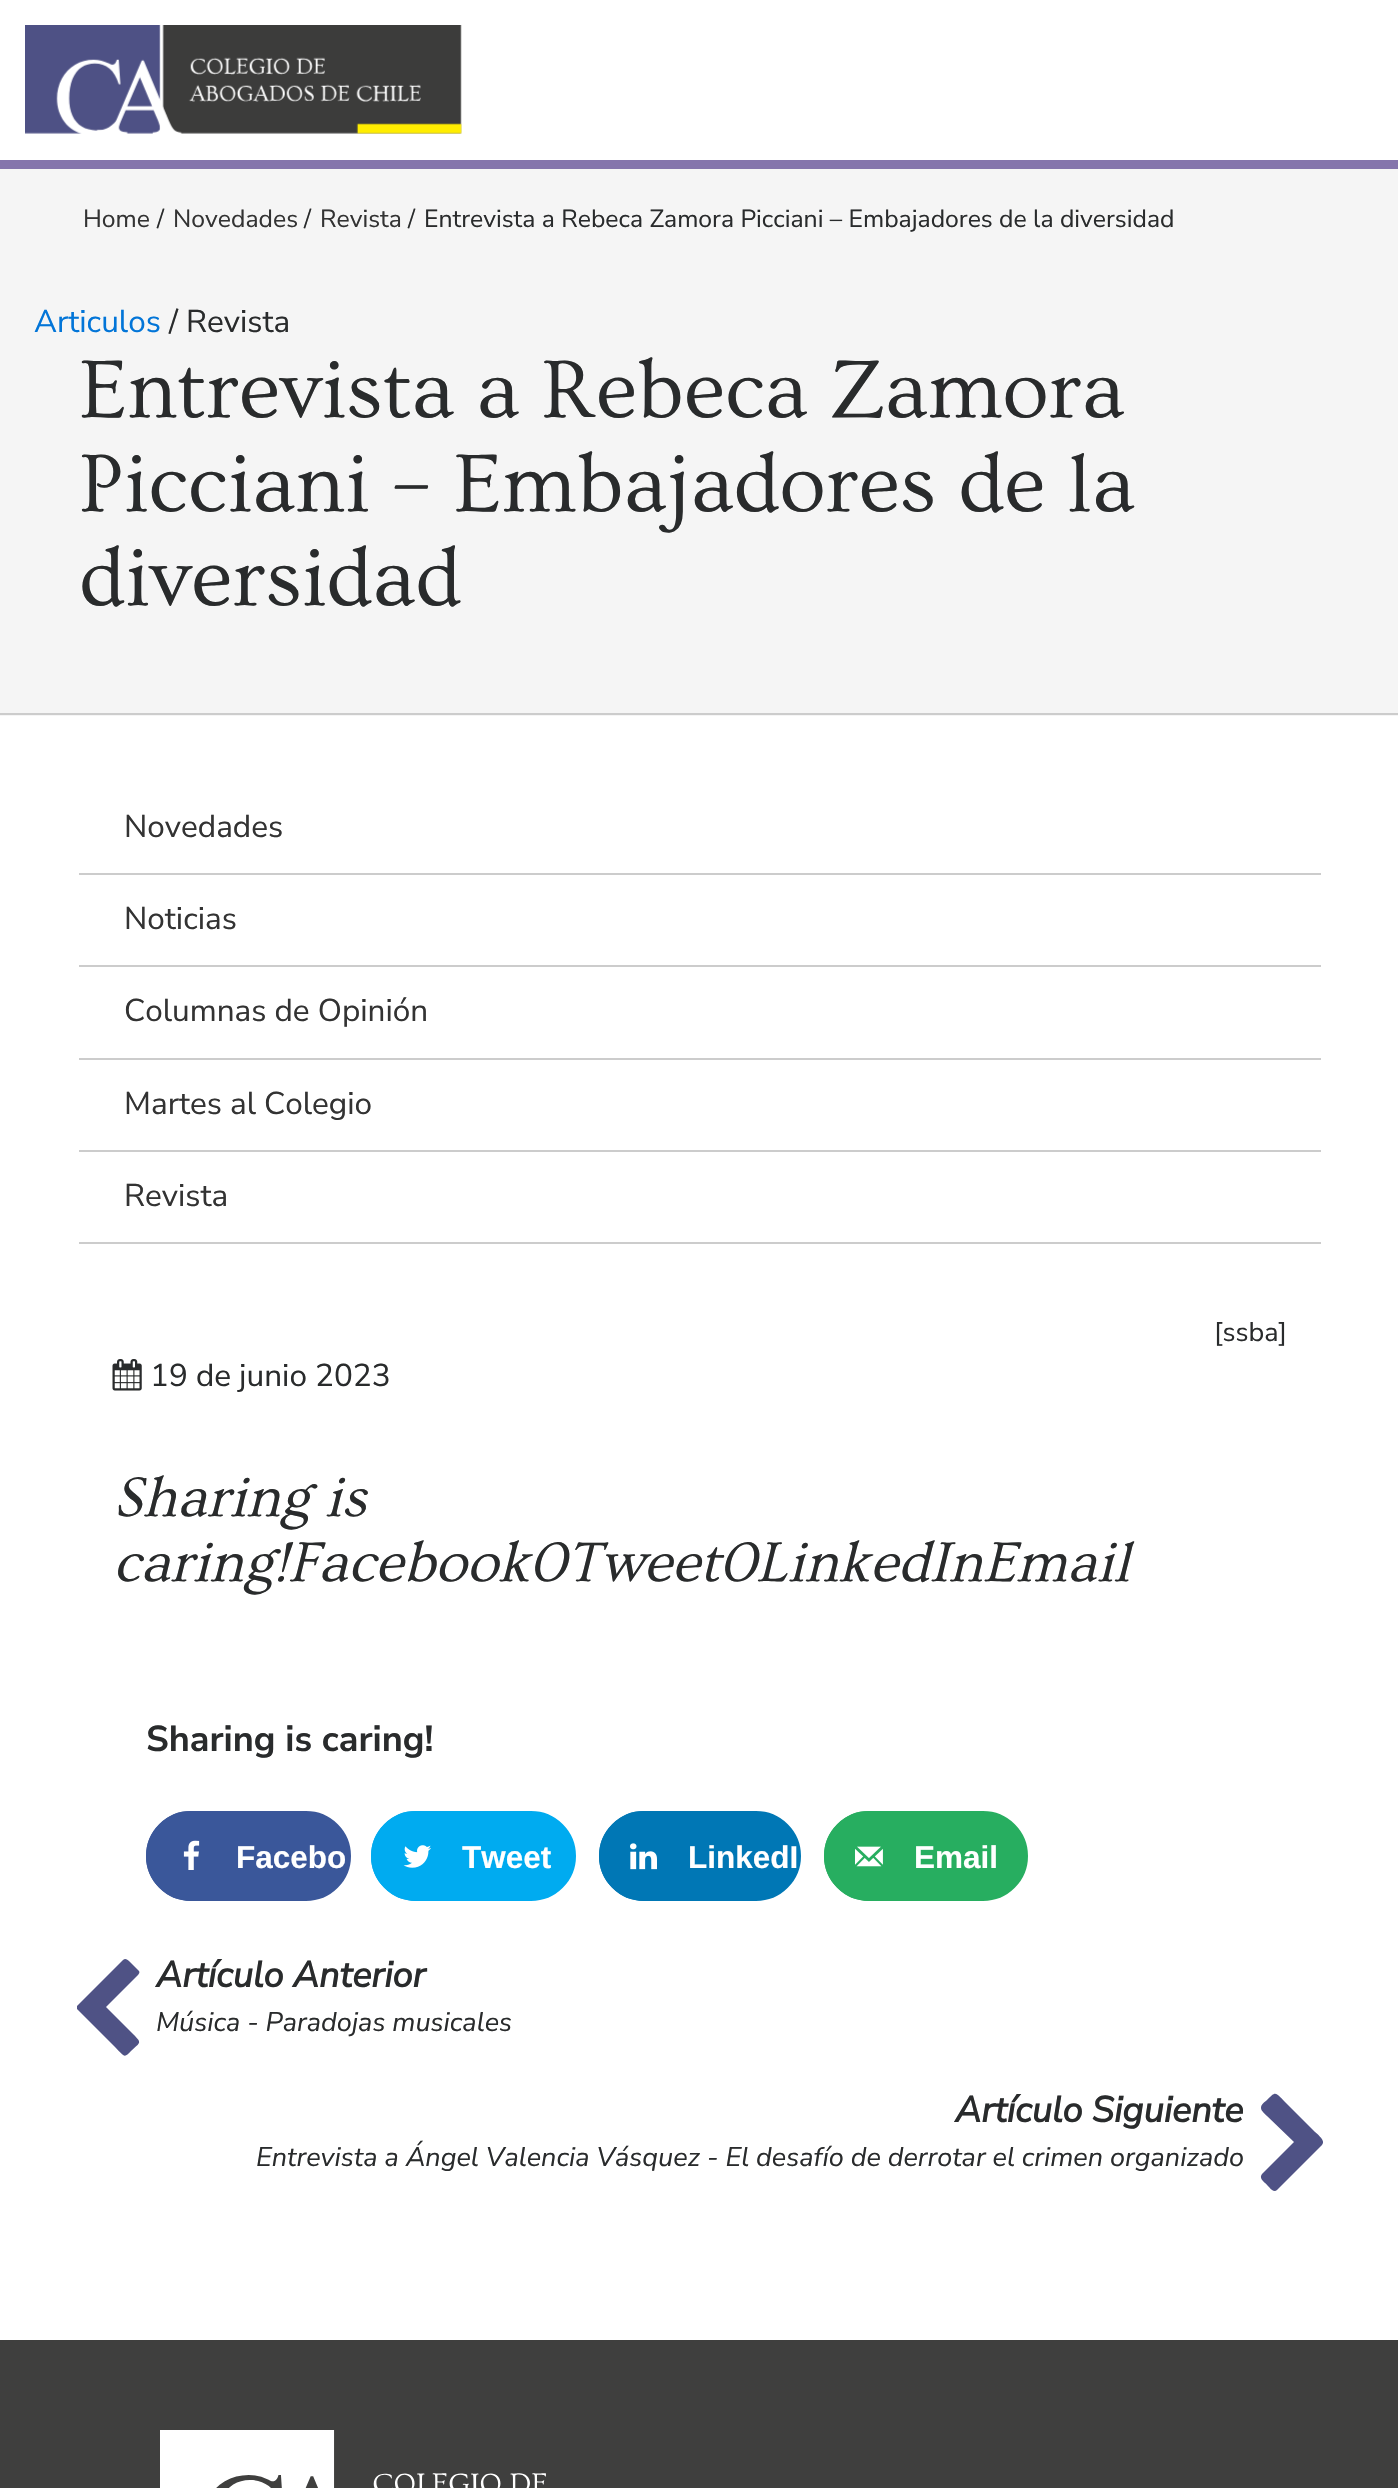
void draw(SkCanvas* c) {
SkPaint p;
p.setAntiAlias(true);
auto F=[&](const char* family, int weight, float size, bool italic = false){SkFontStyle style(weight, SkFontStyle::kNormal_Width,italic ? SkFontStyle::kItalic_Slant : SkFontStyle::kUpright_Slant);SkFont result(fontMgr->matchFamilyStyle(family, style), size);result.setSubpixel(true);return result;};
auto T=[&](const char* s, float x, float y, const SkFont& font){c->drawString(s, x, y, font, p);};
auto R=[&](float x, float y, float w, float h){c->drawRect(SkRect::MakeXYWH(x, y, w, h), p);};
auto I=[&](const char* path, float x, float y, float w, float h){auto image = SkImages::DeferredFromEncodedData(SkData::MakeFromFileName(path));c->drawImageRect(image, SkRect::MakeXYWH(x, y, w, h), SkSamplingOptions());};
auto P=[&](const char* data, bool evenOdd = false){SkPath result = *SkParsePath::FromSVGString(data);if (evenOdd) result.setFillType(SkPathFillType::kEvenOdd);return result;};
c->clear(0xffffffff);
p.setColor(0xff8575ac);
R(0,160,1398,9);
I("1.png",25,25,437,109);
p.setColor(0xfff5f5f5);
R(0,169,1398,547);
p.setColor(0xffcccccc);
R(0,713,1398,2);
auto f1 = F("Nunito Sans",400,24.75);
p.setColor(0xff333333);
T("Home",83,227,f1);
p.setColor(0xff292b2c);
T("/",157,227,f1);
p.setColor(0xff333333);
T("Novedades",173,227,f1);
p.setColor(0xff292b2c);
T("/",304,227,f1);
p.setColor(0xff333333);
T("Revista",320,227,f1);
p.setColor(0xff292b2c);
T("/",408,227,f1);
T("Entrevista a Rebeca Zamora Picciani – Embajadores de la diversidad",424,227,f1);
auto f2 = F("Nunito Sans",400,31.5);
p.setColor(0xff0275d8);
T("Articulos",34,332,f2);
p.setColor(0xff292b2c);
T("/ Revista",169,332,f2);
auto f3 = F("Ovo",400,85.5);
T("Entrevista a Rebeca Zamora",79,417,f3);
T("Picciani – Embajadores de la",79,511,f3);
T("diversidad",79,605,f3);
p.setColor(0xffcccccc);
R(79,873,1242,2);
p.setColor(0xff333333);
T("Novedades",124,837,f2);
p.setColor(0xffcccccc);
R(79,965,1242,2);
p.setColor(0xff333333);
T("Noticias",124,929,f2);
p.setColor(0xffcccccc);
R(79,1058,1242,2);
p.setColor(0xff333333);
T("Columnas de Opinión",124,1021,f2);
p.setColor(0xffcccccc);
R(79,1150,1242,2);
p.setColor(0xff333333);
T("Martes al Colegio",124,1114,f2);
p.setColor(0xffcccccc);
R(79,1242,1242,2);
p.setColor(0xff333333);
T("Revista",124,1206,f2);
auto f4 = F("Nunito Sans",400,27);
p.setColor(0xff292b2c);
T("[ssba]",1214,1341,f4);
I("2.png",112,1359,30,32);
T("19 de junio 2023",150,1386,f2);
auto f5 = F("Ovo",400,58.5,true);
T("Sharing is",113,1516,f5);
T("caring!Facebook0Tweet0LinkedInEmail",113,1581,f5);
auto f6 = F("Nunito Sans",700,36);
T("Sharing is caring!",146,1751,f6);
p.setColor(0xff3a579a);
c->drawRoundRect(SkRect::MakeXYWH(148.5,1813.5,200,85),42.5,42.5,p);
p.setStroke(true);
p.setStrokeWidth(5);
c->drawRoundRect(SkRect::MakeXYWH(148.5,1813.5,200,85),42.5,42.5,p);
p.setStroke(false);
c->drawCircle(191,1856,42.5,p);
p.setStroke(true);
c->drawCircle(191,1856,42.5,p);
I("3.png",183,1840,17,30);
auto f7 = F("Liberation Sans",700,31.5);
p.setStroke(false);
p.setColor(0xffffffff);
T("Facebo",236,1868,f7);
p.setColor(0xff00abf0);
c->drawRoundRect(SkRect::MakeXYWH(373.5,1813.5,200,85),42.5,42.5,p);
p.setStroke(true);
c->drawRoundRect(SkRect::MakeXYWH(373.5,1813.5,200,85),42.5,42.5,p);
p.setStroke(false);
c->drawCircle(416,1856,42.5,p);
p.setStroke(true);
c->drawCircle(416,1856,42.5,p);
I("4.png",403,1845,28,23);
p.setStroke(false);
p.setColor(0xffffffff);
T("Tweet",462,1868,f7);
p.setColor(0xff0077b5);
c->drawRoundRect(SkRect::MakeXYWH(601.5,1813.5,197,85),42.5,42.5,p);
p.setStroke(true);
c->drawRoundRect(SkRect::MakeXYWH(601.5,1813.5,197,85),42.5,42.5,p);
p.setStroke(false);
c->drawCircle(644,1856,42.5,p);
p.setStroke(true);
c->drawCircle(644,1856,42.5,p);
I("5.png",630,1843,27,27);
p.setStroke(false);
p.setColor(0xffffffff);
T("LinkedI",688,1868,f7);
p.setColor(0xff27ae60);
c->drawRoundRect(SkRect::MakeXYWH(826.5,1813.5,199,85),42.5,42.5,p);
p.setStroke(true);
c->drawRoundRect(SkRect::MakeXYWH(826.5,1813.5,199,85),42.5,42.5,p);
p.setStroke(false);
c->drawCircle(869,1856,42.5,p);
p.setStroke(true);
c->drawCircle(869,1856,42.5,p);
I("6.png",855,1846,28,21);
p.setStroke(false);
p.setColor(0xffffffff);
T("Email",914,1868,f7);
p.setColor(0xff4f5285);
c->drawPath(P("M138 1975l-32 32l27 27c9 9 8 8-2 17c-7 8-7 5-16-4l-38-38c0-1 0-2 0-3l46-46c3-3 6 1 8 3l8 8c1 1 0 3-1 4z"),p);
auto f8 = F("Nunito Sans",700,36,true);
p.setColor(0xff292b2c);
T("Artículo Anterior",156,1987,f8);
auto f9 = F("Nunito Sans",400,27,true);
T("Música - Paradojas musicales",156,2031,f9);
T("Artículo Siguiente",955,2122,f8);
p.setColor(0xff4f5285);
c->drawPath(P("M1322 2145l-45 45c-4 4-9-5-12-7c-2-2-6-5-3-9l32-32l-27-26c-1-1-6-5-6-8c0-4 4-6 6-8c9-9 8-8 18 2l30 30c1 1 9 7 8 11z"),p);
p.setColor(0xff292b2c);
T("Entrevista a Ángel Valencia Vásquez - El desafío de derrotar el crimen organizado",256,2166,f9);
p.setColor(0xff3f3f3e);
R(0,2340,1398,148);
I("7.png",160,2430,386,58);
}
